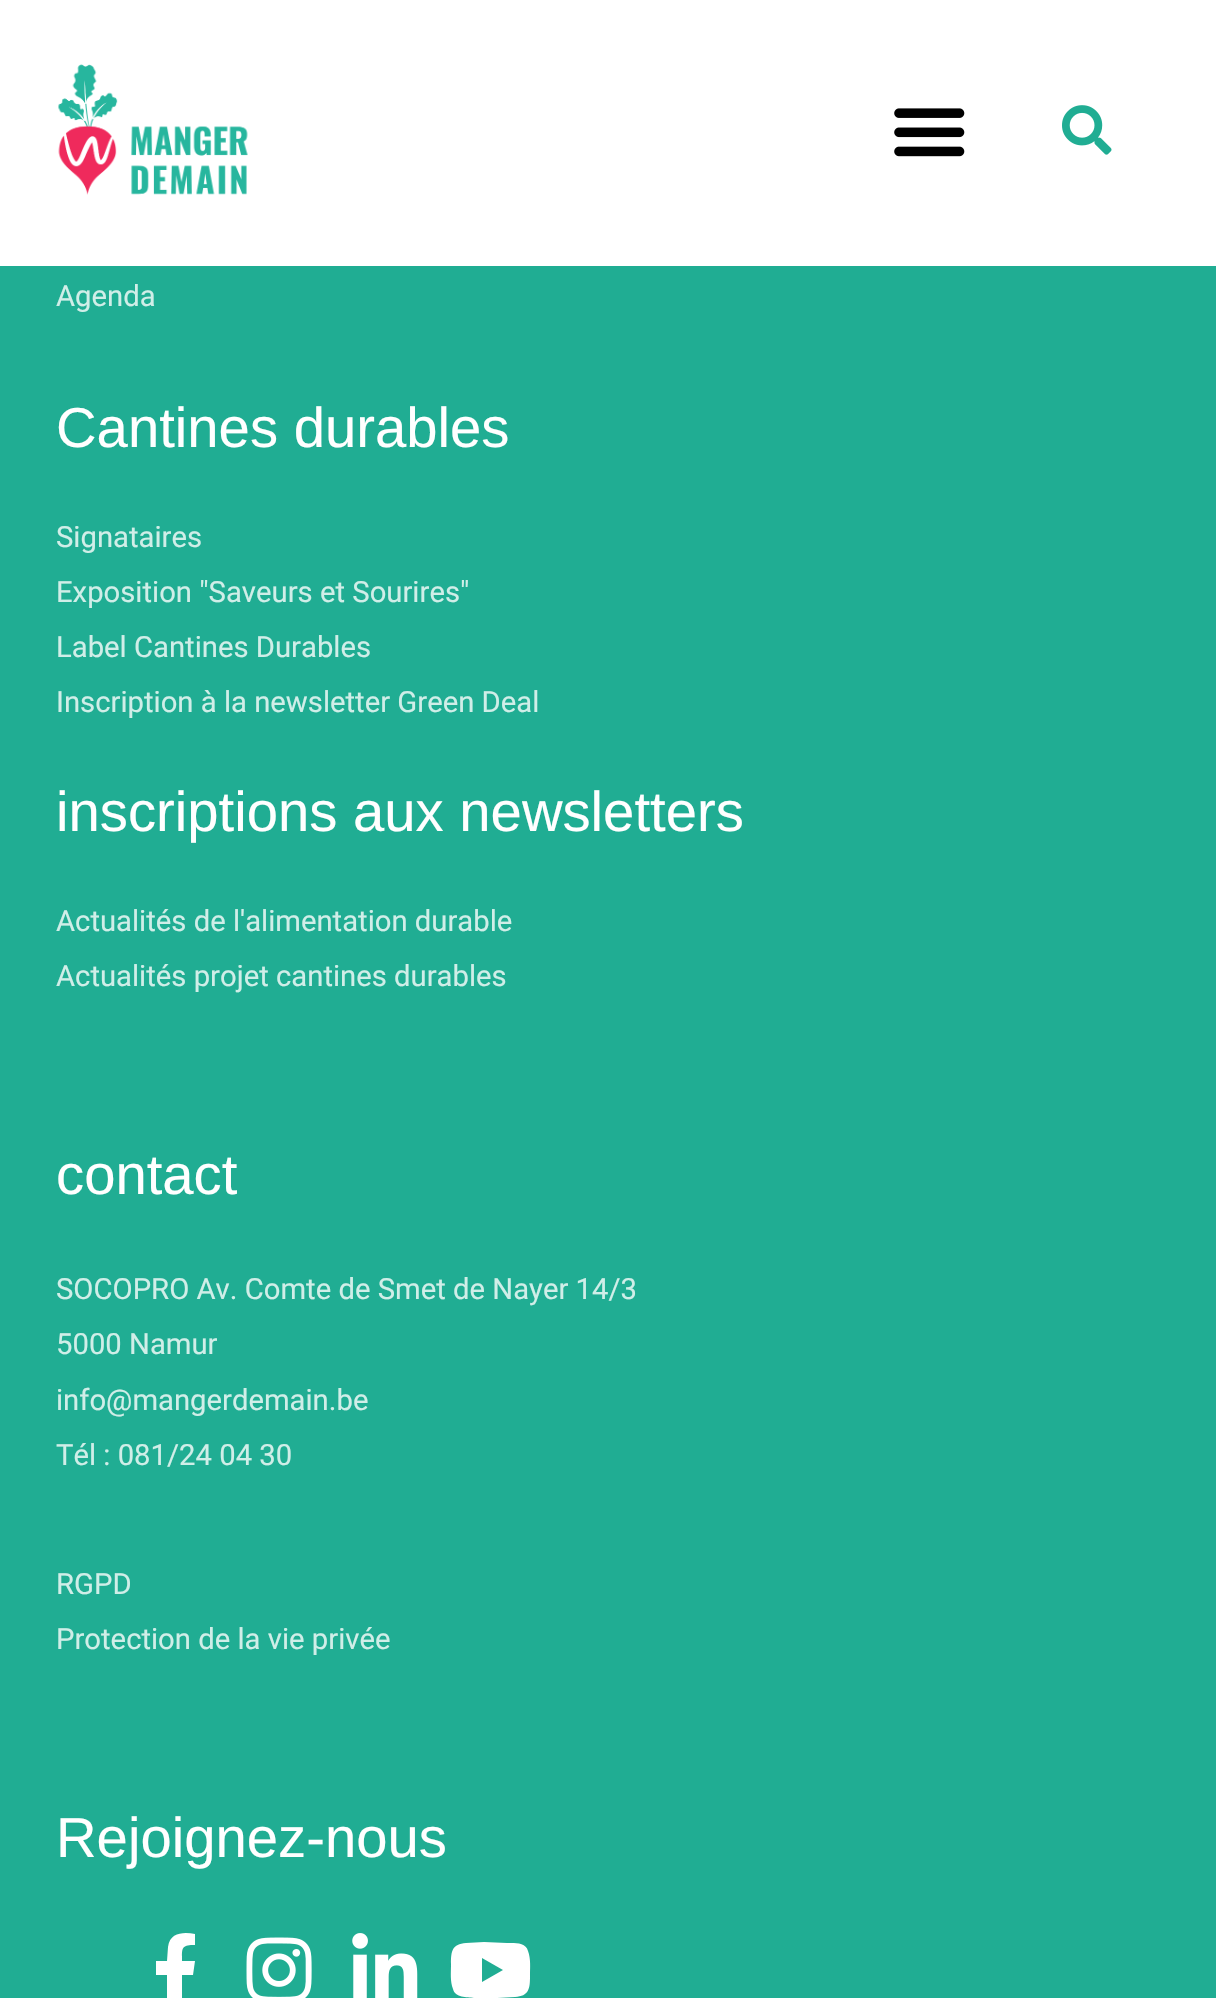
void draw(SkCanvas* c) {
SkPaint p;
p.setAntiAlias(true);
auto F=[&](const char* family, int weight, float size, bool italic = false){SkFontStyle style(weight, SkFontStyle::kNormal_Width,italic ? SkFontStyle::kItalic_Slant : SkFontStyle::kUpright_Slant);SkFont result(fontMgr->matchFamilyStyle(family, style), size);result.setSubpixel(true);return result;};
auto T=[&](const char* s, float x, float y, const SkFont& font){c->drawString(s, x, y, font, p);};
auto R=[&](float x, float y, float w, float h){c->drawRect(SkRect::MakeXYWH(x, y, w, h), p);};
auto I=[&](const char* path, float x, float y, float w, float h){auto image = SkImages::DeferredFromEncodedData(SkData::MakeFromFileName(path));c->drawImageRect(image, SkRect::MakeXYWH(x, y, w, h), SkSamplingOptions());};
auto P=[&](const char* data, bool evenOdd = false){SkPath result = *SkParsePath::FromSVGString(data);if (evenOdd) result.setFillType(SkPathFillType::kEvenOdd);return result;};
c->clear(0xff20ad93);
p.setColor(0xffffffff);
R(0,0,1216,266);
I("1.png",58,64,190,131);
I("2.png",894,108,71,49);
I("3.png",1062,105,50,50);
auto f1 = F("Roboto",400,29.25);
p.setColor(0xffd0eee8);
T("Agenda",56,306,f1);
auto f2 = F("Liberation Sans",400,56.25);
p.setColor(0xffffffff);
T("Cantines durables",56,447,f2);
p.setColor(0xffd0eee8);
T("Signataires",56,547,f1);
T("Exposition \"Saveurs et Sourires\"",56,602,f1);
T("Label Cantines Durables",56,657,f1);
T("Inscription à la newsletter Green Deal",56,712,f1);
p.setColor(0xffffffff);
T("inscriptions aux newsletters",56,831,f2);
p.setColor(0xffd0eee8);
T("Actualités de l'alimentation durable",56,931,f1);
T("Actualités projet cantines durables",56,986,f1);
p.setColor(0xffffffff);
T("contact",56,1194,f2);
p.setColor(0xffd0eee8);
T("SOCOPRO Av. Comte de Smet de Nayer 14/3",56,1299,f1);
T("5000 Namur",56,1354,f1);
T("info@mangerdemain.be",56,1410,f1);
T("Tél : 081/24 04 30",56,1465,f1);
T("RGPD",56,1594,f1);
T("Protection de la vie privée",56,1649,f1);
p.setColor(0xffffffff);
T("Rejoignez-nous",56,1857,f2);
c->drawPath(P("M193 1975h-11v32h-15v-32h-11v-14h11l1-14c2-15 16-15 27-13v11c-14 0-13 3-13 16h13z"),p);
I("4.png",246,1937,66,61);
I("5.png",352,1933,66,65);
c->drawPath(P("M528 1951c3 8 2 17 2 25c0 13-1 20-15 21l-18 1h-23c-7-1-19 0-21-9c-3-8-2-16-2-25c0-13 1-20 15-21l18-1l23 1c7 0 19-1 21 8zm-46 31l21-12l-21-12z"),p);
}
